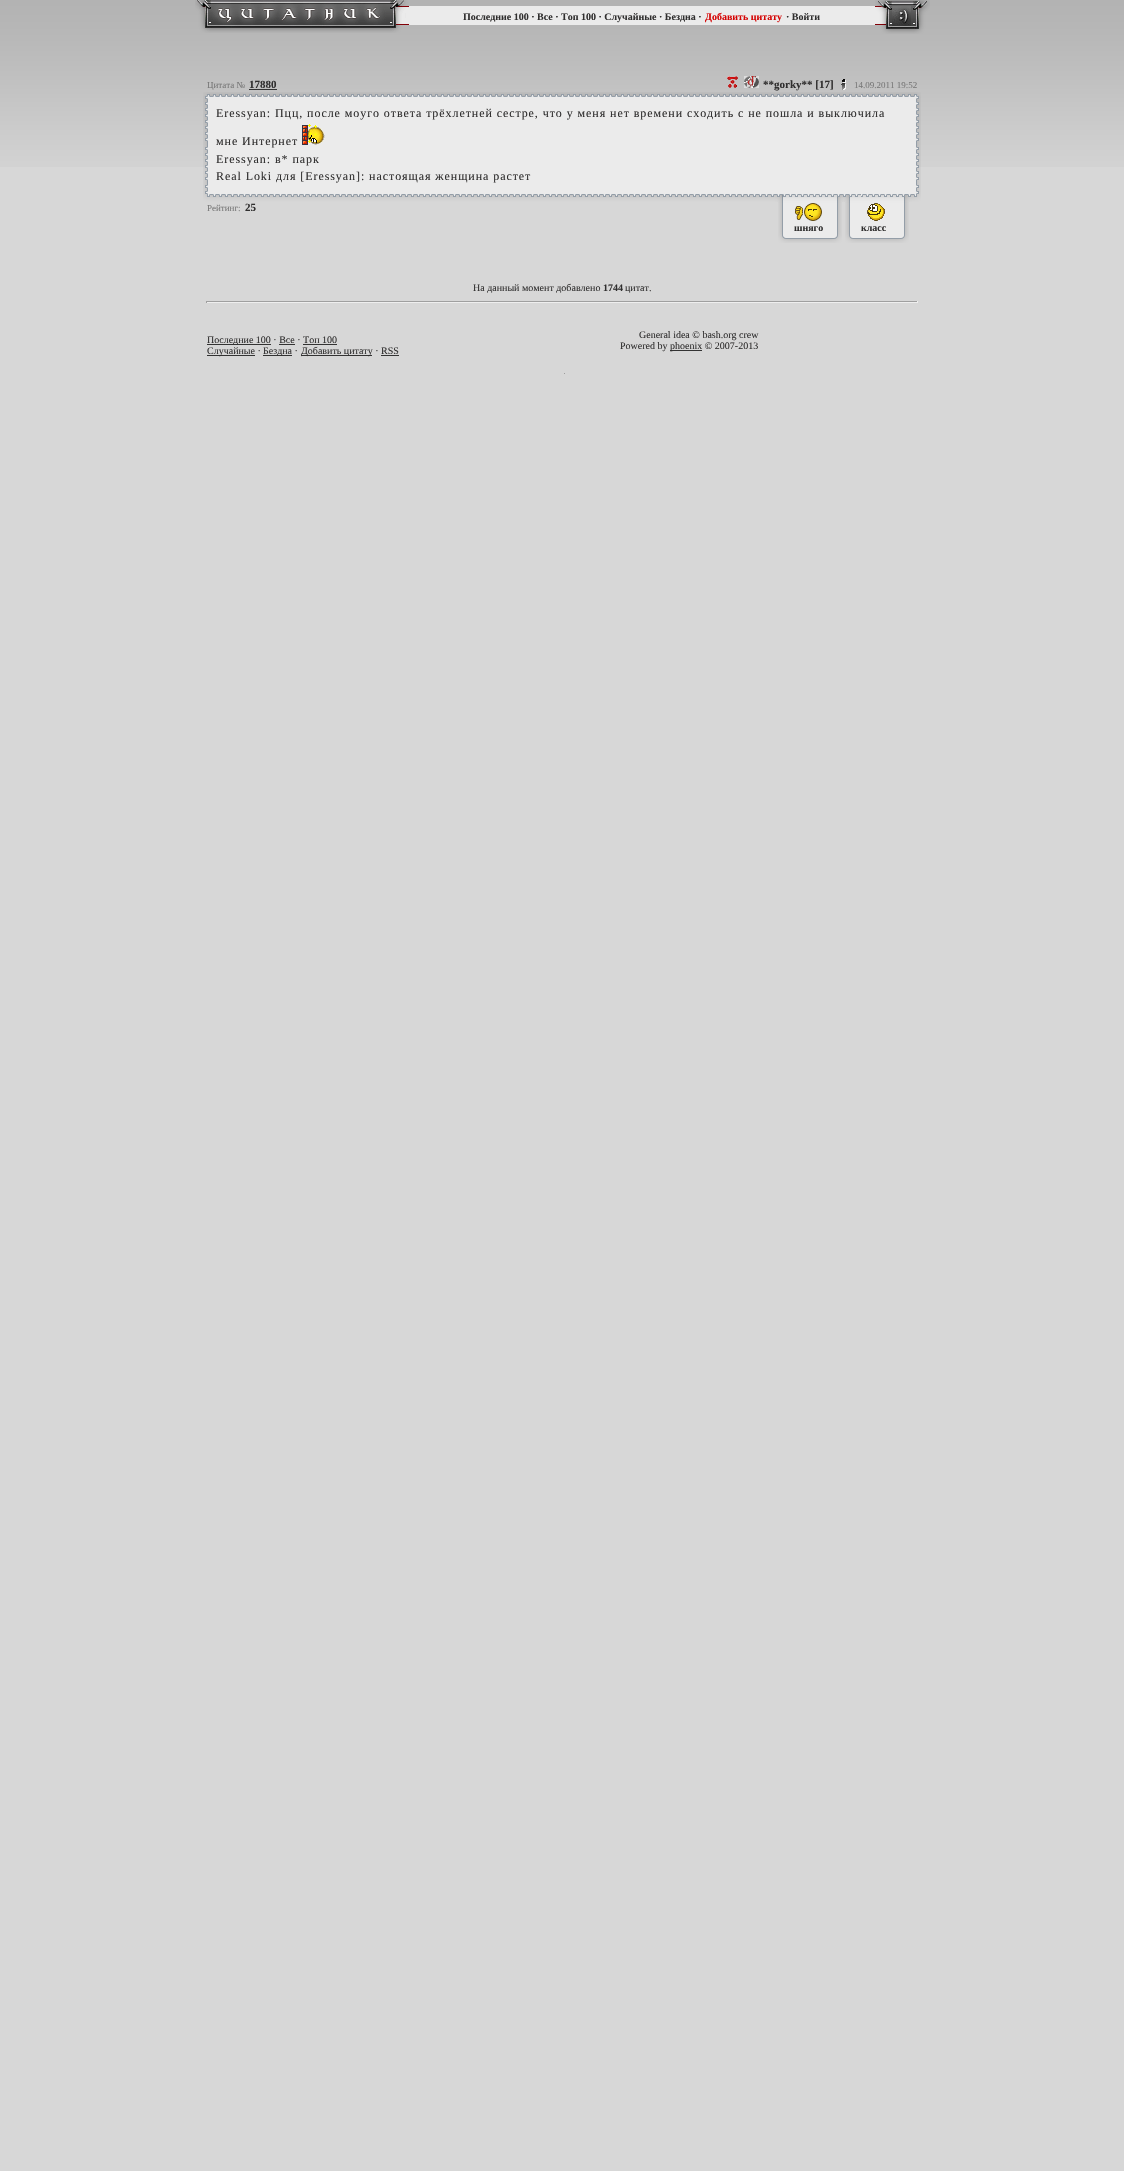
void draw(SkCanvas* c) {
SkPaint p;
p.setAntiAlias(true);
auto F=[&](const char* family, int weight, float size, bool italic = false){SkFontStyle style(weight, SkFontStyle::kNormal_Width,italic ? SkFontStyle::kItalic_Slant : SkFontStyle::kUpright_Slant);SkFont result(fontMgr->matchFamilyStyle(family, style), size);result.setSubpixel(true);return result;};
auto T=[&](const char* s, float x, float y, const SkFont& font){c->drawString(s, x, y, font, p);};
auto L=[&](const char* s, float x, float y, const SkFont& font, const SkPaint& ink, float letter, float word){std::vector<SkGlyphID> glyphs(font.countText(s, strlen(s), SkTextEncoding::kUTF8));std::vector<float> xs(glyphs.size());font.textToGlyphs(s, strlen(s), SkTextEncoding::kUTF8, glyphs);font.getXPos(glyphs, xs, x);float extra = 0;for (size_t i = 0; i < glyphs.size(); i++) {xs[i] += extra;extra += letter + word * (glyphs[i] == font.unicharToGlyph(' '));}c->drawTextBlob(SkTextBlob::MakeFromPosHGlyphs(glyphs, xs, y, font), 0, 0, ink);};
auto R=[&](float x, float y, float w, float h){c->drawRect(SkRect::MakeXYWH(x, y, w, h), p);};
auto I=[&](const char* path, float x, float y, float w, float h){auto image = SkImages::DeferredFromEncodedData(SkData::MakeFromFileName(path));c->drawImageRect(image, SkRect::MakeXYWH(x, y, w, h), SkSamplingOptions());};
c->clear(0xffd7d7d7);
I("1.png",0,0,1124,167);
I("2.png",195,0,214,33);
p.setColor(0xffebebeb);
R(409,6,466,19);
auto f1 = F("Liberation Serif",700,10);
p.setColor(0xff302f2f);
T("Последние 100 · Все · Топ 100 · Случайные · Бездна ·",463,20,f1);
p.setColor(0xffd50303);
T("Добавить цитату",705,20,f1);
p.setColor(0xff302f2f);
T("· Войти",786,20,f1);
I("3.png",875,0,55,34);
I("4.png",203,92,718,13);
auto f2 = F("Liberation Serif",400,9);
p.setColor(0xff787878);
T("Цитата №",207,88,f2);
auto f3 = F("Liberation Serif",700,11);
p.setColor(0xff302f2f);
T("17880",249,88,f3);
p.setColor(0xff333333);
R(249,89,28,1);
I("5.png",727,76,11,12);
I("6.png",744,76,15,12);
p.setColor(0xff302f2f);
T("**gorky** [17]",763,88,f3);
I("7.png",841,79,5,11);
p.setColor(0xff787878);
T("14.09.2011 19:52",854,88,f2);
I("8.png",203,105,13,80);
p.setColor(0xffebebeb);
R(216,105,692,80);
auto f4 = F("Liberation Serif",400,12);
p.setColor(0xff302f2f);
L("Eressyan: Пцц, после моуго ответа трёхлетней сестре, что у меня нет времени сходить с не пошла и выключила",216,117,f4,p,.93,0);
L("мне Интернет",216,145,f4,p,.93,0);
I("9.png",302,124,23,21);
L("Eressyan: в* парк",216,163,f4,p,.93,0);
L("Real Loki для [Eressyan]: настоящая женщина растет",216,180,f4,p,.93,0);
I("10.png",908,105,13,80);
I("11.png",203,185,718,17);
p.setColor(0xff787878);
T("Рейтинг:",207,211,f2);
p.setColor(0xff302f2f);
T("25",245,211,f3);
I("12.png",778,202,64,41);
I("13.png",795,203,27,18);
T("шняго",794,231,f1);
I("12.png",845,202,64,41);
I("14.png",867,203,18,18);
T("класс",861,231,f1);
auto f5 = F("Liberation Serif",400,10);
T("На данный момент добавлено",473,291,f5);
T("1744",603,291,f1);
T("цитат.",625,291,f5);
p.setColor(0xff9f9f9f);
R(206,301,712,1);
p.setColor(0xffeeeeee);
R(917,301,1,2);
R(206,302,712,1);
p.setColor(0xff9f9f9f);
R(206,301,1,2);
p.setColor(0xff333333);
R(207,344,64,1);
p.setColor(0xff302f2f);
T("Последние 100 · Все · Топ 100",207,343,f5);
p.setColor(0xff333333);
R(279,344,16,1);
R(303,344,34,1);
R(207,355,48,1);
p.setColor(0xff302f2f);
T("Случайные ·",207,354,f5);
p.setColor(0xff333333);
R(263,355,29,1);
p.setColor(0xff302f2f);
T("Бездна ·",263,354,f5);
p.setColor(0xff333333);
R(301,355,71,1);
p.setColor(0xff302f2f);
T("Добавить цитату · RSS",301,354,f5);
p.setColor(0xff333333);
R(381,355,18,1);
p.setColor(0xff302f2f);
T("General idea © bash.org crew",639,338,f5);
T("Powered by",620,349,f5);
p.setColor(0xff333333);
R(670,350,32,1);
p.setColor(0xff302f2f);
T("phoenix © 2007-2013",670,349,f5);
p.setColor(0xff9e9e9e);
R(564,373,1,1);
}
